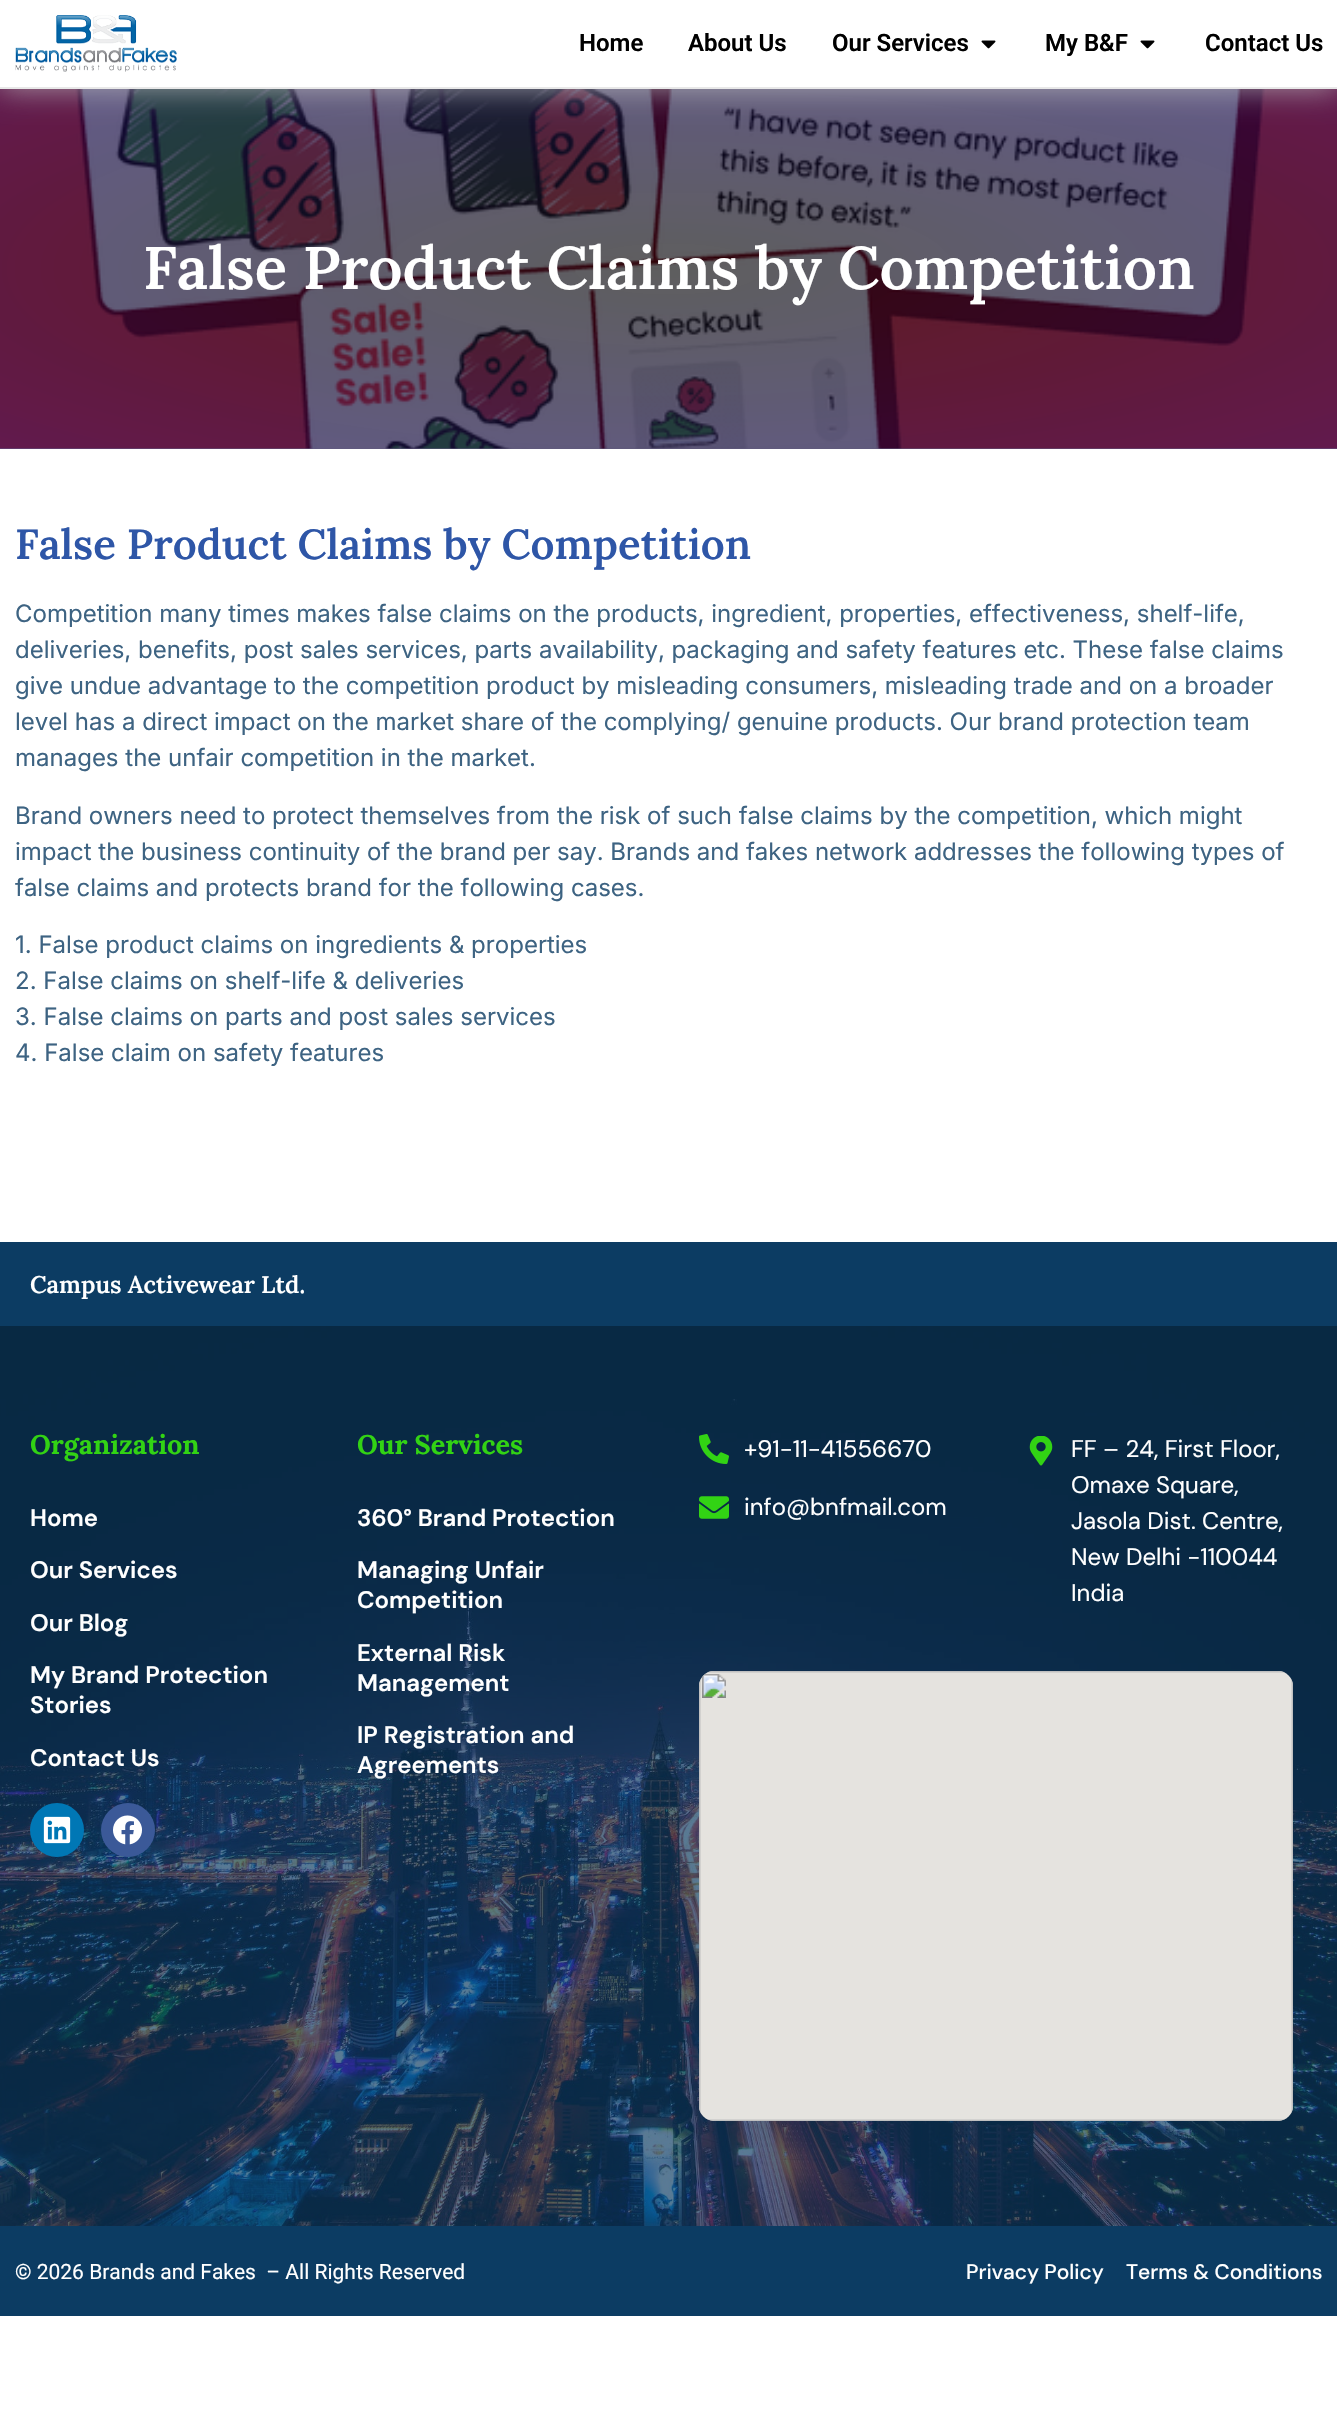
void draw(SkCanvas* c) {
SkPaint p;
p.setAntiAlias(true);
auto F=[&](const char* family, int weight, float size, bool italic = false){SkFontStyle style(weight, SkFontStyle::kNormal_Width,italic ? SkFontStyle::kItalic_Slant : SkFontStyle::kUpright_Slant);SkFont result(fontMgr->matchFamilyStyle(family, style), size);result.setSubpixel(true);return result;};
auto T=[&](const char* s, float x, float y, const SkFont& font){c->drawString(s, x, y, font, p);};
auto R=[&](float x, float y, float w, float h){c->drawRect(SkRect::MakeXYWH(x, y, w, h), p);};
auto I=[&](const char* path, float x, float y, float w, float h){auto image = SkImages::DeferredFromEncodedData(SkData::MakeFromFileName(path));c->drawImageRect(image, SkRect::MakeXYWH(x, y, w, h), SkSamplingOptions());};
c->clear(0xffffffff);
I("3.png",0,89,1337,360);
{
const SkColor colors[] = {0xa1000000,0xa60e0049};
const float stops[] = {0,1};
SkMatrix m = SkMatrix::Translate(669,269).preScale(946,255);
p.setShader(SkGradientShader::MakeRadial({0, 0}, 1, colors, stops, 2, SkTileMode::kClamp, 0, &m));
p.setAlpha(255);
}
R(0,89,1337,360);
p.setShader(nullptr);
p.setColor(0xc4bbbbbb);
p.setMaskFilter(SkMaskFilter::MakeBlur(kNormal_SkBlurStyle, 15));
c->drawRect(SkRect::MakeXYWH(0,0,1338,89),p);
p.setMaskFilter(nullptr);
p.setColor(0xffffffff);
R(0,0,1337,87);
p.setColor(0xffe8e8e8);
R(0,87,1337,2);
I("1.png",15,15,162,57);
auto f1 = F("Roboto",600,24);
p.setColor(0xff000000);
T("Home",579,51,f1);
T("About Us",688,51,f1);
T("Our Services",832,51,f1);
I("2.png",981,40,15,9);
T("My B&F",1045,51,f1);
I("2.png",1140,40,15,9);
T("Contact Us",1205,51,f1);
auto f2 = F("Lora",600,60);
p.setColor(0xffffffff);
T("False Product Claims by Competition",143,289,f2);
auto f3 = F("Lora",600,42);
p.setColor(0xff2e56a7);
T("False Product Claims by Competition",15,559,f3);
auto f4 = F("Inter",400,24);
p.setColor(0xff3d6382);
T("Competition many times makes false claims on the products, ingredient, properties, effectiveness, shelf-life,",15,622,f4);
T("deliveries, benefits, post sales services, parts availability, packaging and safety features etc. These false claims",15,658,f4);
T("give undue advantage to the competition product by misleading consumers, misleading trade and on a broader",15,694,f4);
T("level has a direct impact on the market share of the complying/ genuine products. Our brand protection team",15,730,f4);
T("manages the unfair competition in the market.",15,766,f4);
T("Brand owners need to protect themselves from the risk of such false claims by the competition, which might",15,824,f4);
T("impact the business continuity of the brand per say. Brands and fakes network addresses the following types of",15,860,f4);
T("false claims and protects brand for the following cases.",15,896,f4);
T("1. False product claims on ingredients & properties",15,953,f4);
T("2. False claims on shelf-life & deliveries",15,989,f4);
T("3. False claims on parts and post sales services",15,1025,f4);
T("4. False claim on safety features",15,1061,f4);
p.setColor(0xff0c3c63);
R(0,1242,1337,84);
auto f5 = F("Lora",600,24);
p.setColor(0xffffffff);
T("Campus Activewear Ltd.",30,1293,f5);
I("4.png",0,1326,1337,900);
auto f6 = F("Lora",700,27);
p.setColor(0xff32d314);
T("Organization",30,1454,f6);
auto f7 = F("DM Sans",600,24);
p.setColor(0xffffffff);
T("Home",30,1526,f7);
T("Our Services",30,1578,f7);
T("Our Blog",30,1631,f7);
T("My Brand Protection",30,1683,f7);
T("Stories",30,1713,f7);
T("Contact Us",30,1766,f7);
p.setColor(0xff0077b5);
c->drawCircle(57,1830,27,p);
I("5.png",43,1816,28,28);
p.setColor(0xff3b5998);
c->drawCircle(128,1830,27,p);
I("6.png",113,1815,29,30);
p.setColor(0xff32d314);
T("Our Services",357,1454,f6);
p.setColor(0xffffffff);
T("360° Brand Protection",357,1526,f7);
T("Managing Unfair",357,1578,f7);
T("Competition",357,1608,f7);
T("External Risk",357,1661,f7);
T("Management",357,1691,f7);
T("IP Registration and",357,1743,f7);
T("Agreements",357,1773,f7);
I("7.png",699,1434,30,30);
auto f8 = F("DM Sans",400,24);
T("+91-11-41556670",744,1457,f8);
I("8.png",699,1496,30,23);
T("info@bnfmail.com",744,1515,f8);
I("9.png",1029,1436,24,30);
T("FF – 24, First Floor,",1071,1457,f8);
T("Omaxe Square,",1071,1493,f8);
T("Jasola Dist. Centre,",1071,1529,f8);
T("New Delhi -110044",1071,1565,f8);
T("India",1071,1601,f8);
I("10.png",699,1671,594,450);
p.setColor(0xff0c3c63);
R(0,2226,1337,90);
auto f9 = F("Roboto",400,21);
p.setColor(0xffffffff);
T("© 2026 Brands and Fakes  – All Rights Reserved",15,2279,f9);
auto f10 = F("DM Sans",500,21);
T("Privacy Policy",966,2279,f10);
T("Terms & Conditions",1126,2279,f10);
}
